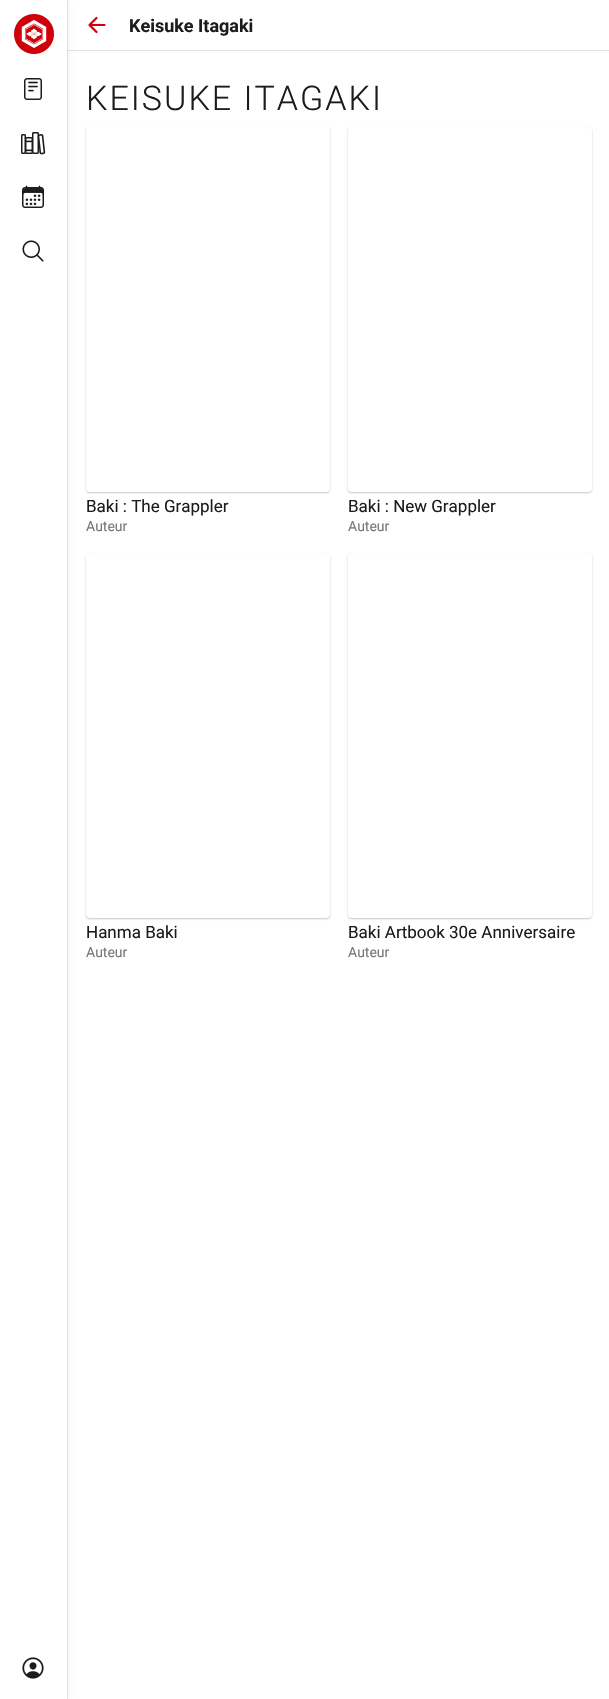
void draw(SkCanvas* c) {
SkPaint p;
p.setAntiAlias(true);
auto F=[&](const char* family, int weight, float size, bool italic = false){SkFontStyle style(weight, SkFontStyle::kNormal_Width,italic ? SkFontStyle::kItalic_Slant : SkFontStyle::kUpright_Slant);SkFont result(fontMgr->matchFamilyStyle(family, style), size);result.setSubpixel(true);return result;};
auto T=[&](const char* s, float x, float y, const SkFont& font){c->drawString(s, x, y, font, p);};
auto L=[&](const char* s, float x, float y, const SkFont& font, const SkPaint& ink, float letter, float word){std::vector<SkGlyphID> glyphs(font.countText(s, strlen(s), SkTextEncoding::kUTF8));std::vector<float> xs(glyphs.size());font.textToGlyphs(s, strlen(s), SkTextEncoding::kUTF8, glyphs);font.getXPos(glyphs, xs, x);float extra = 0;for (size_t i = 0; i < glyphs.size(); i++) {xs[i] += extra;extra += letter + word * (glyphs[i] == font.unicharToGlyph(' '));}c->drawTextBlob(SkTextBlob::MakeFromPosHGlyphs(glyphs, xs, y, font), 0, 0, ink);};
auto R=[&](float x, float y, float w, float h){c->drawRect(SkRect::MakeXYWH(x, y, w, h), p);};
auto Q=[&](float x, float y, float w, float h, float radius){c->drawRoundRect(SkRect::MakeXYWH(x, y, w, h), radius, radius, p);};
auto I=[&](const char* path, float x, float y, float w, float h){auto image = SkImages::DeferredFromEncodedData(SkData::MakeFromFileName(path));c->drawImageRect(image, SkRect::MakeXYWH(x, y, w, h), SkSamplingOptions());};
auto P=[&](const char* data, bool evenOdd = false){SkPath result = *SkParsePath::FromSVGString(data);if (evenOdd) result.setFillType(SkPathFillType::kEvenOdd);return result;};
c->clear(0xffffffff);
p.setColor(0xffe0e0e0);
R(68,50,541,1);
p.setColor(0x0f000000);
p.setMaskFilter(SkMaskFilter::MakeBlur(kNormal_SkBlurStyle, 3));
c->drawRect(SkRect::MakeXYWH(0,1,68,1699),p);
p.setMaskFilter(nullptr);
p.setColor(0xffffffff);
R(0,0,67,1699);
p.setColor(0xffe0e0e0);
R(67,0,1,1699);
I("1.png",14,14,40,40);
I("2.png",24,78,18,22);
I("3.png",21,132,25,23);
I("4.png",22,185,22,23);
I("5.png",22,240,22,22);
I("6.png",22,1657,22,22);
p.setStroke(true);
p.setStrokeWidth(2.2);
p.setStrokeCap(SkPaint::kRound_Cap);
p.setStrokeJoin(SkPaint::kRound_Join);
p.setColor(0xffcf000a);
c->drawPath(P("M96.5 32l-7-7l7-7m-6 7h14"),p);
auto f1 = F("Roboto",700,18);
p.setStroke(false);
p.setColor(0xff1c1c1e);
T("Keisuke Itagaki",129,32,f1);
auto f2 = F("Roboto",300,34);
L("KEISUKE ITAGAKI",86,110,f2,p,2,0);
p.setColor(0x38000000);
p.setMaskFilter(SkMaskFilter::MakeBlur(kNormal_SkBlurStyle, 1));
c->drawRoundRect(SkRect::MakeXYWH(86,128,244,365),4,4,p);
p.setMaskFilter(nullptr);
p.setColor(0xffffffff);
Q(86,127,244,365,4);
auto f3 = F("Roboto",400,17);
p.setColor(0xff1c1c1e);
T("Baki : The Grappler",86,512,f3);
auto f4 = F("Roboto",400,14);
p.setColor(0xff777777);
T("Auteur",86,531,f4);
p.setColor(0x38000000);
p.setMaskFilter(SkMaskFilter::MakeBlur(kNormal_SkBlurStyle, 1));
c->drawRoundRect(SkRect::MakeXYWH(348,128,244,365),4,4,p);
p.setMaskFilter(nullptr);
p.setColor(0xffffffff);
Q(348,127,244,365,4);
p.setColor(0xff1c1c1e);
T("Baki : New Grappler",348,512,f3);
p.setColor(0xff777777);
T("Auteur",348,531,f4);
p.setColor(0x38000000);
p.setMaskFilter(SkMaskFilter::MakeBlur(kNormal_SkBlurStyle, 1));
c->drawRoundRect(SkRect::MakeXYWH(86,554,244,365),4,4,p);
p.setMaskFilter(nullptr);
p.setColor(0xffffffff);
Q(86,553,244,365,4);
p.setColor(0xff1c1c1e);
T("Hanma Baki",86,938,f3);
p.setColor(0xff777777);
T("Auteur",86,957,f4);
p.setColor(0x38000000);
p.setMaskFilter(SkMaskFilter::MakeBlur(kNormal_SkBlurStyle, 1));
c->drawRoundRect(SkRect::MakeXYWH(348,554,244,365),4,4,p);
p.setMaskFilter(nullptr);
p.setColor(0xffffffff);
Q(348,553,244,365,4);
p.setColor(0xff1c1c1e);
T("Baki Artbook 30e Anniversaire",348,938,f3);
p.setColor(0xff777777);
T("Auteur",348,957,f4);
}
